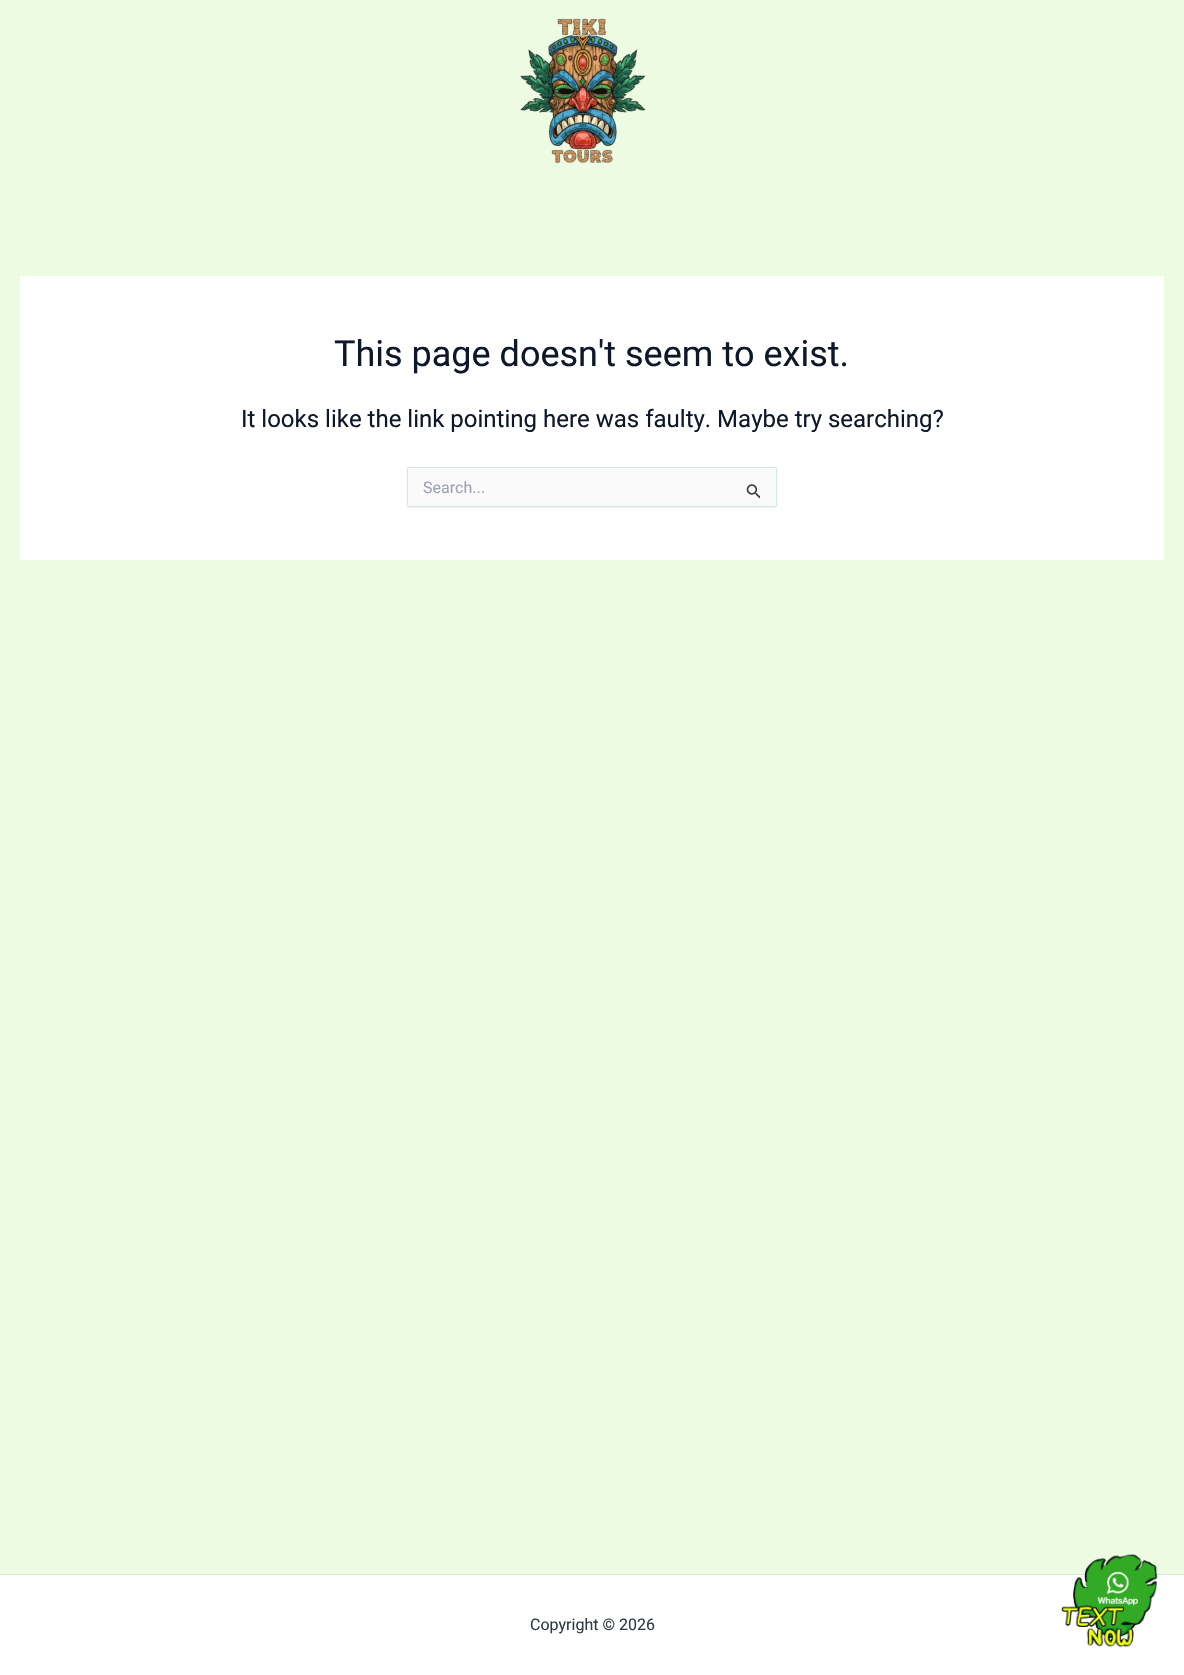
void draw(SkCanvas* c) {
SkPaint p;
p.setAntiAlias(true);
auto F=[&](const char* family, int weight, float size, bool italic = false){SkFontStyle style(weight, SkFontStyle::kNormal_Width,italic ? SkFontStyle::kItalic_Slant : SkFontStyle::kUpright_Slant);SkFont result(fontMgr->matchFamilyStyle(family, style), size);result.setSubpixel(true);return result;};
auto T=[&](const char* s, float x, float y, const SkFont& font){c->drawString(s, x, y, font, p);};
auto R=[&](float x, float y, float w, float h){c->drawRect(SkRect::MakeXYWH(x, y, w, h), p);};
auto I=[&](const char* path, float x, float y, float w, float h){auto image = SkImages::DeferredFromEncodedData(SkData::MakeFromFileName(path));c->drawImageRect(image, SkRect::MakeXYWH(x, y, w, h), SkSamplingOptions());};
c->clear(0xffedfbe2);
I("1.png",520,18,126,146);
p.setColor(0xffffffff);
R(20,276,1144,284);
auto f1 = F("Roboto",400,36);
p.setColor(0xff0f172a);
T("This page doesn't seem to exist.",334,366,f1);
auto f2 = F("Roboto",400,24);
T("It looks like the link pointing here was faulty. Maybe try searching?",241,427,f2);
p.setColor(0x0d000000);
p.setMaskFilter(SkMaskFilter::MakeBlur(kNormal_SkBlurStyle, 1));
c->drawRoundRect(SkRect::MakeXYWH(407,468,370,40),2,2,p);
p.setMaskFilter(nullptr);
p.setColor(0xfffafafa);
c->drawRoundRect(SkRect::MakeXYWH(407.5,467.5,369,39),1.5,1.5,p);
p.setStroke(true);
p.setStrokeWidth(1);
p.setColor(0xffd5ead8);
c->drawRoundRect(SkRect::MakeXYWH(407.5,467.5,369,39),1.5,1.5,p);
auto f3 = F("Roboto",400,16);
p.setStroke(false);
p.setColor(0xff9ca3af);
T("Search...",423,493,f3);
I("2.png",746,484,14,15);
p.setColor(0xffffffff);
R(0,1575,1184,100);
p.setColor(0xffd5ead8);
R(0,1574,1184,1);
p.setColor(0xff2f3b40);
T("Copyright © 2026",530,1630,f3);
I("3.png",1061,1554,97,94);
}
